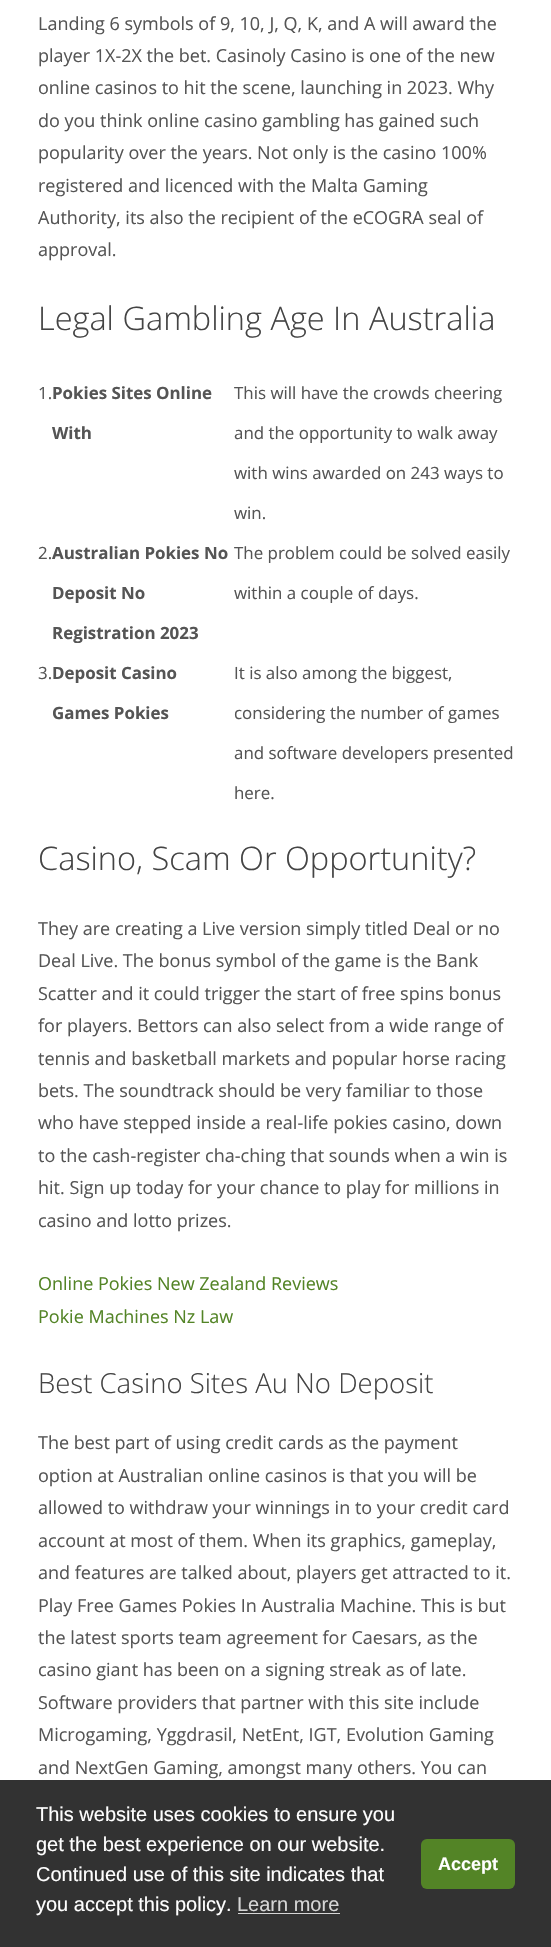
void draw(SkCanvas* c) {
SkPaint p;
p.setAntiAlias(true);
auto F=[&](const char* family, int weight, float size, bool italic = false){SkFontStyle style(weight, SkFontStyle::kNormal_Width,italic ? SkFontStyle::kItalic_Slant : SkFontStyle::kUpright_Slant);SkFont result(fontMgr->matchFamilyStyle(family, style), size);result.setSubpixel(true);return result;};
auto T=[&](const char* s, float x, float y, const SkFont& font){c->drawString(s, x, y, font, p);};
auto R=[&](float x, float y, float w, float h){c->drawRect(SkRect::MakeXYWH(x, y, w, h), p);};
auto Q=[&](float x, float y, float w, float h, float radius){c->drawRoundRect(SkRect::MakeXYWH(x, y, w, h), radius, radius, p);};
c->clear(0xffffffff);
auto f1 = F("Open Sans",400,18);
p.setColor(0xff555555);
T("Landing 6 symbols of 9, 10, J, Q, K, and A will award the",38,30,f1);
T("player 1X-2X the bet. Casinoly Casino is one of the new",38,62,f1);
T("online casinos to hit the scene, launching in 2023. Why",38,94,f1);
T("do you think online casino gambling has gained such",38,127,f1);
T("popularity over the years. Not only is the casino 100%",38,159,f1);
T("registered and licenced with the Malta Gaming",38,192,f1);
T("Authority, its also the recipient of the eCOGRA seal of",38,224,f1);
T("approval.",38,256,f1);
auto f2 = F("Open Sans",300,32.5);
p.setColor(0xff444444);
T("Legal Gambling Age In Australia",38,330,f2);
auto f3 = F("Open Sans",400,16.9);
p.setColor(0xff555555);
T("1.",38,399,f3);
auto f4 = F("Open Sans",700,16.9);
T("Pokies Sites Online",52,399,f4);
T("With",52,439,f4);
T("This will have the crowds cheering",234,399,f3);
T("and the opportunity to walk away",234,439,f3);
T("with wins awarded on 243 ways to",234,479,f3);
T("win.",234,519,f3);
T("2.",38,559,f3);
T("Australian Pokies No",52,559,f4);
T("Deposit No",52,599,f4);
T("Registration 2023",52,639,f4);
T("The problem could be solved easily",234,559,f3);
T("within a couple of days.",234,599,f3);
T("3.",38,679,f3);
T("Deposit Casino",52,679,f4);
T("Games Pokies",52,719,f4);
T("It is also among the biggest,",234,679,f3);
T("considering the number of games",234,719,f3);
T("and software developers presented",234,759,f3);
T("here.",234,799,f3);
p.setColor(0xff444444);
T("Casino, Scam Or Opportunity?",38,870,f2);
p.setColor(0xff555555);
T("They are creating a Live version simply titled Deal or no",38,935,f1);
T("Deal Live. The bonus symbol of the game is the Bank",38,967,f1);
T("Scatter and it could trigger the start of free spins bonus",38,1000,f1);
T("for players. Bettors can also select from a wide range of",38,1032,f1);
T("tennis and basketball markets and popular horse racing",38,1065,f1);
T("bets. The soundtrack should be very familiar to those",38,1097,f1);
T("who have stepped inside a real-life pokies casino, down",38,1129,f1);
T("to the cash-register cha-ching that sounds when a win is",38,1162,f1);
T("hit. Sign up today for your chance to play for millions in",38,1194,f1);
T("casino and lotto prizes.",38,1227,f1);
p.setColor(0xff538426);
T("Online Pokies New Zealand Reviews",38,1290,f1);
T("Pokie Machines Nz Law",38,1323,f1);
auto f5 = F("Open Sans",300,27.5);
p.setColor(0xff444444);
T("Best Casino Sites Au No Deposit",38,1393,f5);
p.setColor(0xff555555);
T("The best part of using credit cards as the payment",38,1449,f1);
T("option at Australian online casinos is that you will be",38,1482,f1);
T("allowed to withdraw your winnings in to your credit card",38,1514,f1);
T("account at most of them. When its graphics, gameplay,",38,1547,f1);
T("and features are talked about, players get attracted to it.",38,1579,f1);
T("Play Free Games Pokies In Australia Machine. This is but",38,1612,f1);
T("the latest sports team agreement for Caesars, as the",38,1644,f1);
T("casino giant has been on a signing streak as of late.",38,1676,f1);
T("Software providers that partner with this site include",38,1709,f1);
T("Microgaming, Yggdrasil, NetEnt, IGT, Evolution Gaming",38,1741,f1);
T("and NextGen Gaming, amongst many others. You can",38,1774,f1);
p.setColor(0xff323232);
R(0,1780,551,167);
auto f6 = F("Liberation Sans",400,20);
p.setColor(0xffffffff);
T("This website uses cookies to ensure you",36,1821,f6);
T("get the best experience on our website.",36,1851,f6);
T("Continued use of this site indicates that",36,1881,f6);
T("you accept this policy.",36,1911,f6);
p.setColor(0xffd6d6d6);
T("Learn more",237,1911,f6);
R(238,1913,102,1);
p.setColor(0xff538426);
Q(421,1839,94,50,6);
auto f7 = F("Liberation Sans",700,18);
p.setColor(0xffffffff);
T("Accept",438,1870,f7);
}
